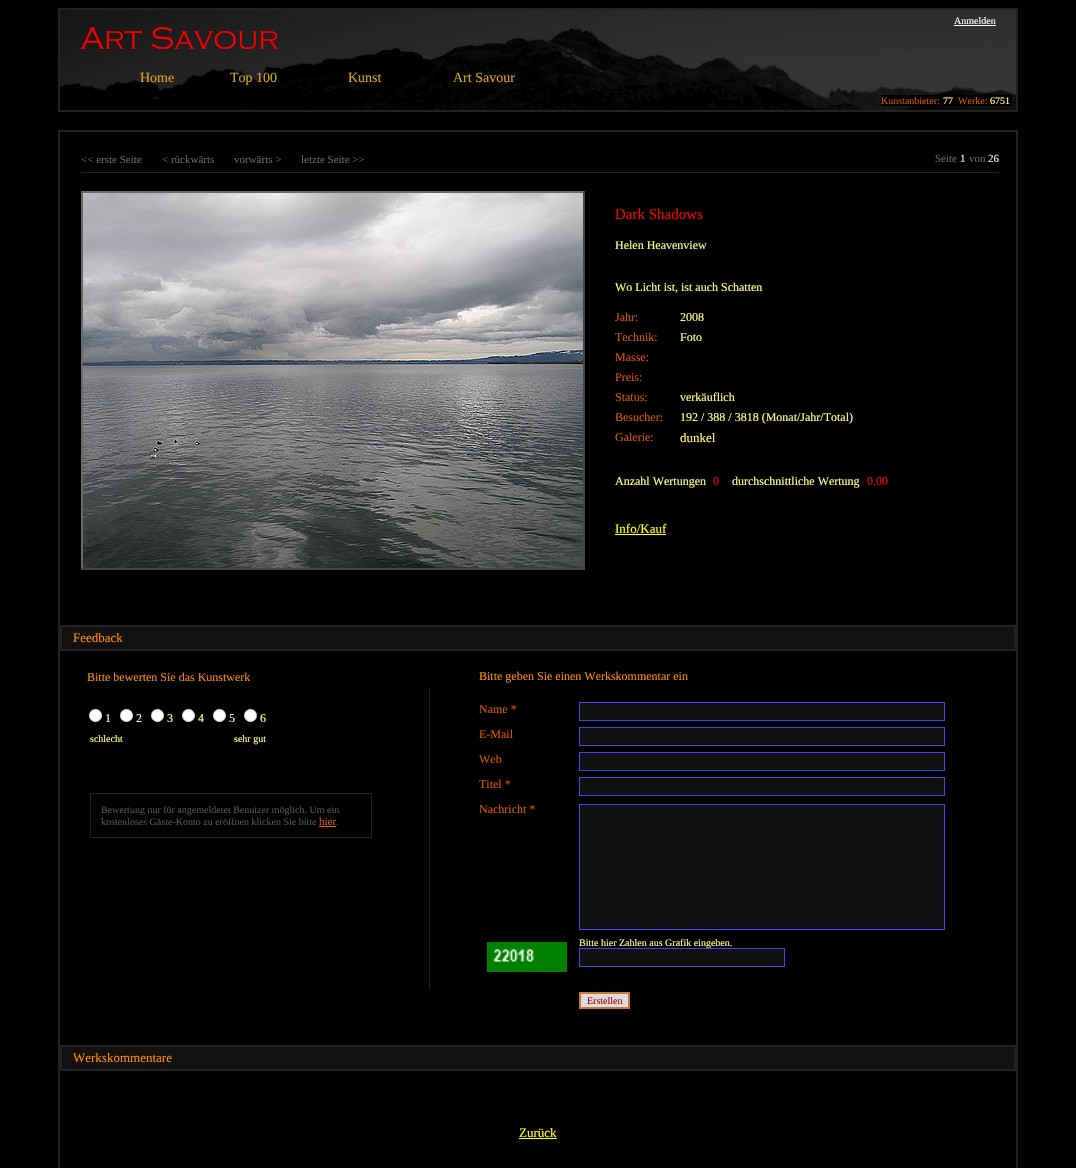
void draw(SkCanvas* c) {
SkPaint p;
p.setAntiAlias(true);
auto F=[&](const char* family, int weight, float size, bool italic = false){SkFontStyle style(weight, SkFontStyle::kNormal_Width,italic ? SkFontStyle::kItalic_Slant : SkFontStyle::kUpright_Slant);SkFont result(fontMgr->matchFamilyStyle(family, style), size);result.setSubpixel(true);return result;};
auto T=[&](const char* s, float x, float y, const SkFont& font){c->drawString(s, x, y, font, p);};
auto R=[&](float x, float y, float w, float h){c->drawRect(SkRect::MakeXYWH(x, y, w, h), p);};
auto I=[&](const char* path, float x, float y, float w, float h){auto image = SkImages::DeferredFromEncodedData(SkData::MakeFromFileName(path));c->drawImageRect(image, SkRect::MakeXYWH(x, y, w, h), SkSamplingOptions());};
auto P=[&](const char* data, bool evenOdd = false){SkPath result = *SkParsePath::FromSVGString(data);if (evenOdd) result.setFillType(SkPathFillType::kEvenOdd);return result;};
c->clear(0xff000000);
p.setStroke(true);
p.setStrokeWidth(2);
p.setColor(0xff222222);
c->drawRect(SkRect::MakeXYWH(59,9,958,102),p);
I("1.png",60,10,956,100);
auto f1 = F("Liberation Serif",400,14);
p.setStroke(false);
p.setColor(0xffdaa520);
T("Home",140,82,f1);
T("Top 100",230,82,f1);
T("Kunst",348,82,f1);
T("Art Savour",453,82,f1);
p.setColor(0xff000000);
R(521,79,2,2);
auto f2 = F("Liberation Serif",400,10);
p.setColor(0xffffffff);
T("Anmelden",954,24,f2);
R(954,25,42,1);
p.setColor(0xff000000);
R(881,95,131,11);
p.setColor(0xffdd5500);
T("Kunstanbieter:",881,104,f2);
p.setColor(0xffffff80);
T("77",943,104,f2);
p.setColor(0xffdd5500);
T("Werke:",958,104,f2);
p.setColor(0xffffff80);
T("6751",990,104,f2);
p.setColor(0xff222222);
R(58,130,960,2);
R(1016,130,2,1038);
R(58,130,2,1038);
auto f3 = F("Liberation Serif",400,11);
p.setColor(0xff666666);
T("<< erste Seite",81,163,f3);
T("< rückwärts",162,163,f3);
T("vorwärts >",234,163,f3);
T("letzte Seite >>",301,163,f3);
T("Seite",935,162,f3);
p.setColor(0xffeeeeee);
T("1",960,162,f3);
p.setColor(0xff666666);
T("von",969,162,f3);
p.setColor(0xffeeeeee);
T("26",988,162,f3);
p.setColor(0xff222222);
R(81,172,918,1);
p.setColor(0xff696969);
c->drawPath(P("M81 191h504l-2 2h-500z"),p);
p.setColor(0xff464646);
c->drawPath(P("M585 191v379l-2-2v-375z"),p);
c->drawPath(P("M585 570h-504l2-2h500z"),p);
p.setColor(0xff696969);
c->drawPath(P("M81 570v-379l2 2v375z"),p);
I("2.png",83,193,500,375);
auto f4 = F("Liberation Serif",400,15);
p.setColor(0xffff0000);
T("Dark Shadows",615,219,f4);
auto f5 = F("Liberation Serif",400,12);
p.setColor(0xffffff80);
T("Helen Heavenview",615,249,f5);
T("Wo Licht ist, ist auch Schatten",615,291,f5);
p.setColor(0xffdd5500);
T("Jahr:",615,321,f5);
p.setColor(0xffffff80);
T("2008",680,321,f5);
p.setColor(0xffdd5500);
T("Technik:",615,341,f5);
p.setColor(0xffffff80);
T("Foto",680,341,f5);
p.setColor(0xffdd5500);
T("Masse:",615,361,f5);
T("Preis:",615,381,f5);
T("Status:",615,401,f5);
p.setColor(0xffffff80);
T("verkäuflich",680,401,f5);
p.setColor(0xffdd5500);
T("Besucher:",615,421,f5);
p.setColor(0xffffff80);
T("192 / 388 / 3818 (Monat/Jahr/Total)",680,421,f5);
p.setColor(0xffdd5500);
T("Galerie:",615,441,f5);
auto f6 = F("Liberation Serif",400,13);
p.setColor(0xffffee70);
T("dunkel",680,442,f6);
p.setColor(0xffffff80);
T("Anzahl Wertungen",615,485,f5);
p.setColor(0xffff0000);
T("0",713,485,f5);
p.setColor(0xffffff80);
T("durchschnittliche Wertung",732,485,f5);
p.setColor(0xffff0000);
T("0.00",867,485,f5);
p.setColor(0xffffff00);
T("Info/Kauf",615,533,f6);
R(615,534,51,1);
p.setColor(0xff222222);
R(60,625,956,2);
R(1014,625,2,26);
R(60,649,956,2);
R(60,625,2,26);
p.setColor(0xff111111);
R(62,627,952,22);
p.setColor(0xffff8c00);
T("Feedback",73,642,f6);
T("Bitte bewerten Sie das Kunstwerk",87,681,f5);
p.setColor(0xffffffff);
c->drawCircle(95.5,715.5,6.5,p);
p.setStroke(true);
p.setStrokeWidth(1);
p.setColor(0x4d767676);
c->drawCircle(95.5,715.5,6,p);
p.setStroke(false);
p.setColor(0xffffff80);
T("1",105,722,f5);
p.setColor(0xffffffff);
c->drawCircle(126.5,715.5,6.5,p);
p.setStroke(true);
p.setColor(0x4d767676);
c->drawCircle(126.5,715.5,6,p);
p.setStroke(false);
p.setColor(0xffffff80);
T("2",136,722,f5);
p.setColor(0xffffffff);
c->drawCircle(157.5,715.5,6.5,p);
p.setStroke(true);
p.setColor(0x4d767676);
c->drawCircle(157.5,715.5,6,p);
p.setStroke(false);
p.setColor(0xffffff80);
T("3",167,722,f5);
p.setColor(0xffffffff);
c->drawCircle(188.5,715.5,6.5,p);
p.setStroke(true);
p.setColor(0x4d767676);
c->drawCircle(188.5,715.5,6,p);
p.setStroke(false);
p.setColor(0xffffff80);
T("4",198,722,f5);
p.setColor(0xffffffff);
c->drawCircle(219.5,715.5,6.5,p);
p.setStroke(true);
p.setColor(0x4d767676);
c->drawCircle(219.5,715.5,6,p);
p.setStroke(false);
p.setColor(0xffffff80);
T("5",229,722,f5);
p.setColor(0xffffffff);
c->drawCircle(250.5,715.5,6.5,p);
p.setStroke(true);
p.setColor(0x4d767676);
c->drawCircle(250.5,715.5,6,p);
p.setStroke(false);
p.setColor(0xffffff80);
T("6",260,722,f5);
T("schlecht",90,742,f2);
T("sehr gut",234,742,f2);
p.setStroke(true);
p.setColor(0xff222222);
c->drawRect(SkRect::MakeXYWH(90.5,793.5,281,44),p);
p.setStroke(false);
p.setColor(0xff555555);
T("Bewertung nur für angemeldetet Benutzer möglich. Um ein",101,813,f2);
T("kostenloses Gäste-Konto zu eröffnen klicken Sie bitte",101,825,f2);
p.setColor(0xffdd5500);
T("hier",319,825,f3);
p.setColor(0xff555555);
T(".",336,825,f2);
p.setColor(0xffdd5500);
R(319,826,17,1);
p.setColor(0xff222222);
R(429,689,1,300);
p.setColor(0xffff8c00);
T("Bitte geben Sie einen Werkskommentar ein",479,680,f5);
p.setColor(0xffdd5500);
T("Name *",479,713,f5);
p.setColor(0xff101010);
c->drawRect(SkRect::MakeXYWH(579.5,702.5,365,18),p);
p.setStroke(true);
p.setColor(0xff4444ee);
c->drawRect(SkRect::MakeXYWH(579.5,702.5,365,18),p);
p.setStroke(false);
p.setColor(0xffdd5500);
T("E-Mail",479,738,f5);
p.setColor(0xff101010);
c->drawRect(SkRect::MakeXYWH(579.5,727.5,365,18),p);
p.setStroke(true);
p.setColor(0xff4444ee);
c->drawRect(SkRect::MakeXYWH(579.5,727.5,365,18),p);
p.setStroke(false);
p.setColor(0xffdd5500);
T("Web",479,763,f5);
p.setColor(0xff101010);
c->drawRect(SkRect::MakeXYWH(579.5,752.5,365,18),p);
p.setStroke(true);
p.setColor(0xff4444ee);
c->drawRect(SkRect::MakeXYWH(579.5,752.5,365,18),p);
p.setStroke(false);
p.setColor(0xffdd5500);
T("Titel *",479,788,f5);
p.setColor(0xff101010);
c->drawRect(SkRect::MakeXYWH(579.5,777.5,365,18),p);
p.setStroke(true);
p.setColor(0xff4444ee);
c->drawRect(SkRect::MakeXYWH(579.5,777.5,365,18),p);
p.setStroke(false);
p.setColor(0xffdd5500);
T("Nachricht *",479,813,f5);
p.setColor(0xff101010);
c->drawRect(SkRect::MakeXYWH(579.5,804.5,365,125),p);
p.setStroke(true);
p.setColor(0xff4444ee);
c->drawRect(SkRect::MakeXYWH(579.5,804.5,365,125),p);
I("3.png",487,942,80,30);
p.setStroke(false);
p.setColor(0xffffff80);
T("Bitte hier Zahlen aus Grafik eingeben.",579,946,f2);
p.setColor(0xff101010);
c->drawRect(SkRect::MakeXYWH(579.5,948.5,205,18),p);
p.setStroke(true);
p.setColor(0xff4444ee);
c->drawRect(SkRect::MakeXYWH(579.5,948.5,205,18),p);
p.setStroke(false);
p.setColor(0xffdddddd);
c->drawRect(SkRect::MakeXYWH(580,993,49,15),p);
p.setStroke(true);
p.setStrokeWidth(2);
p.setColor(0xffcc7733);
c->drawRect(SkRect::MakeXYWH(580,993,49,15),p);
p.setStroke(false);
p.setColor(0xffaa0000);
T("Erstellen",587,1004,f2);
p.setColor(0xff222222);
R(60,1045,956,2);
R(1014,1045,2,26);
R(60,1069,956,2);
R(60,1045,2,26);
p.setColor(0xff111111);
R(62,1047,952,22);
p.setColor(0xffff8c00);
T("Werkskommentare",73,1062,f6);
p.setColor(0xffffff00);
T("Zurück",519,1137,f6);
R(519,1138,38,1);
}
